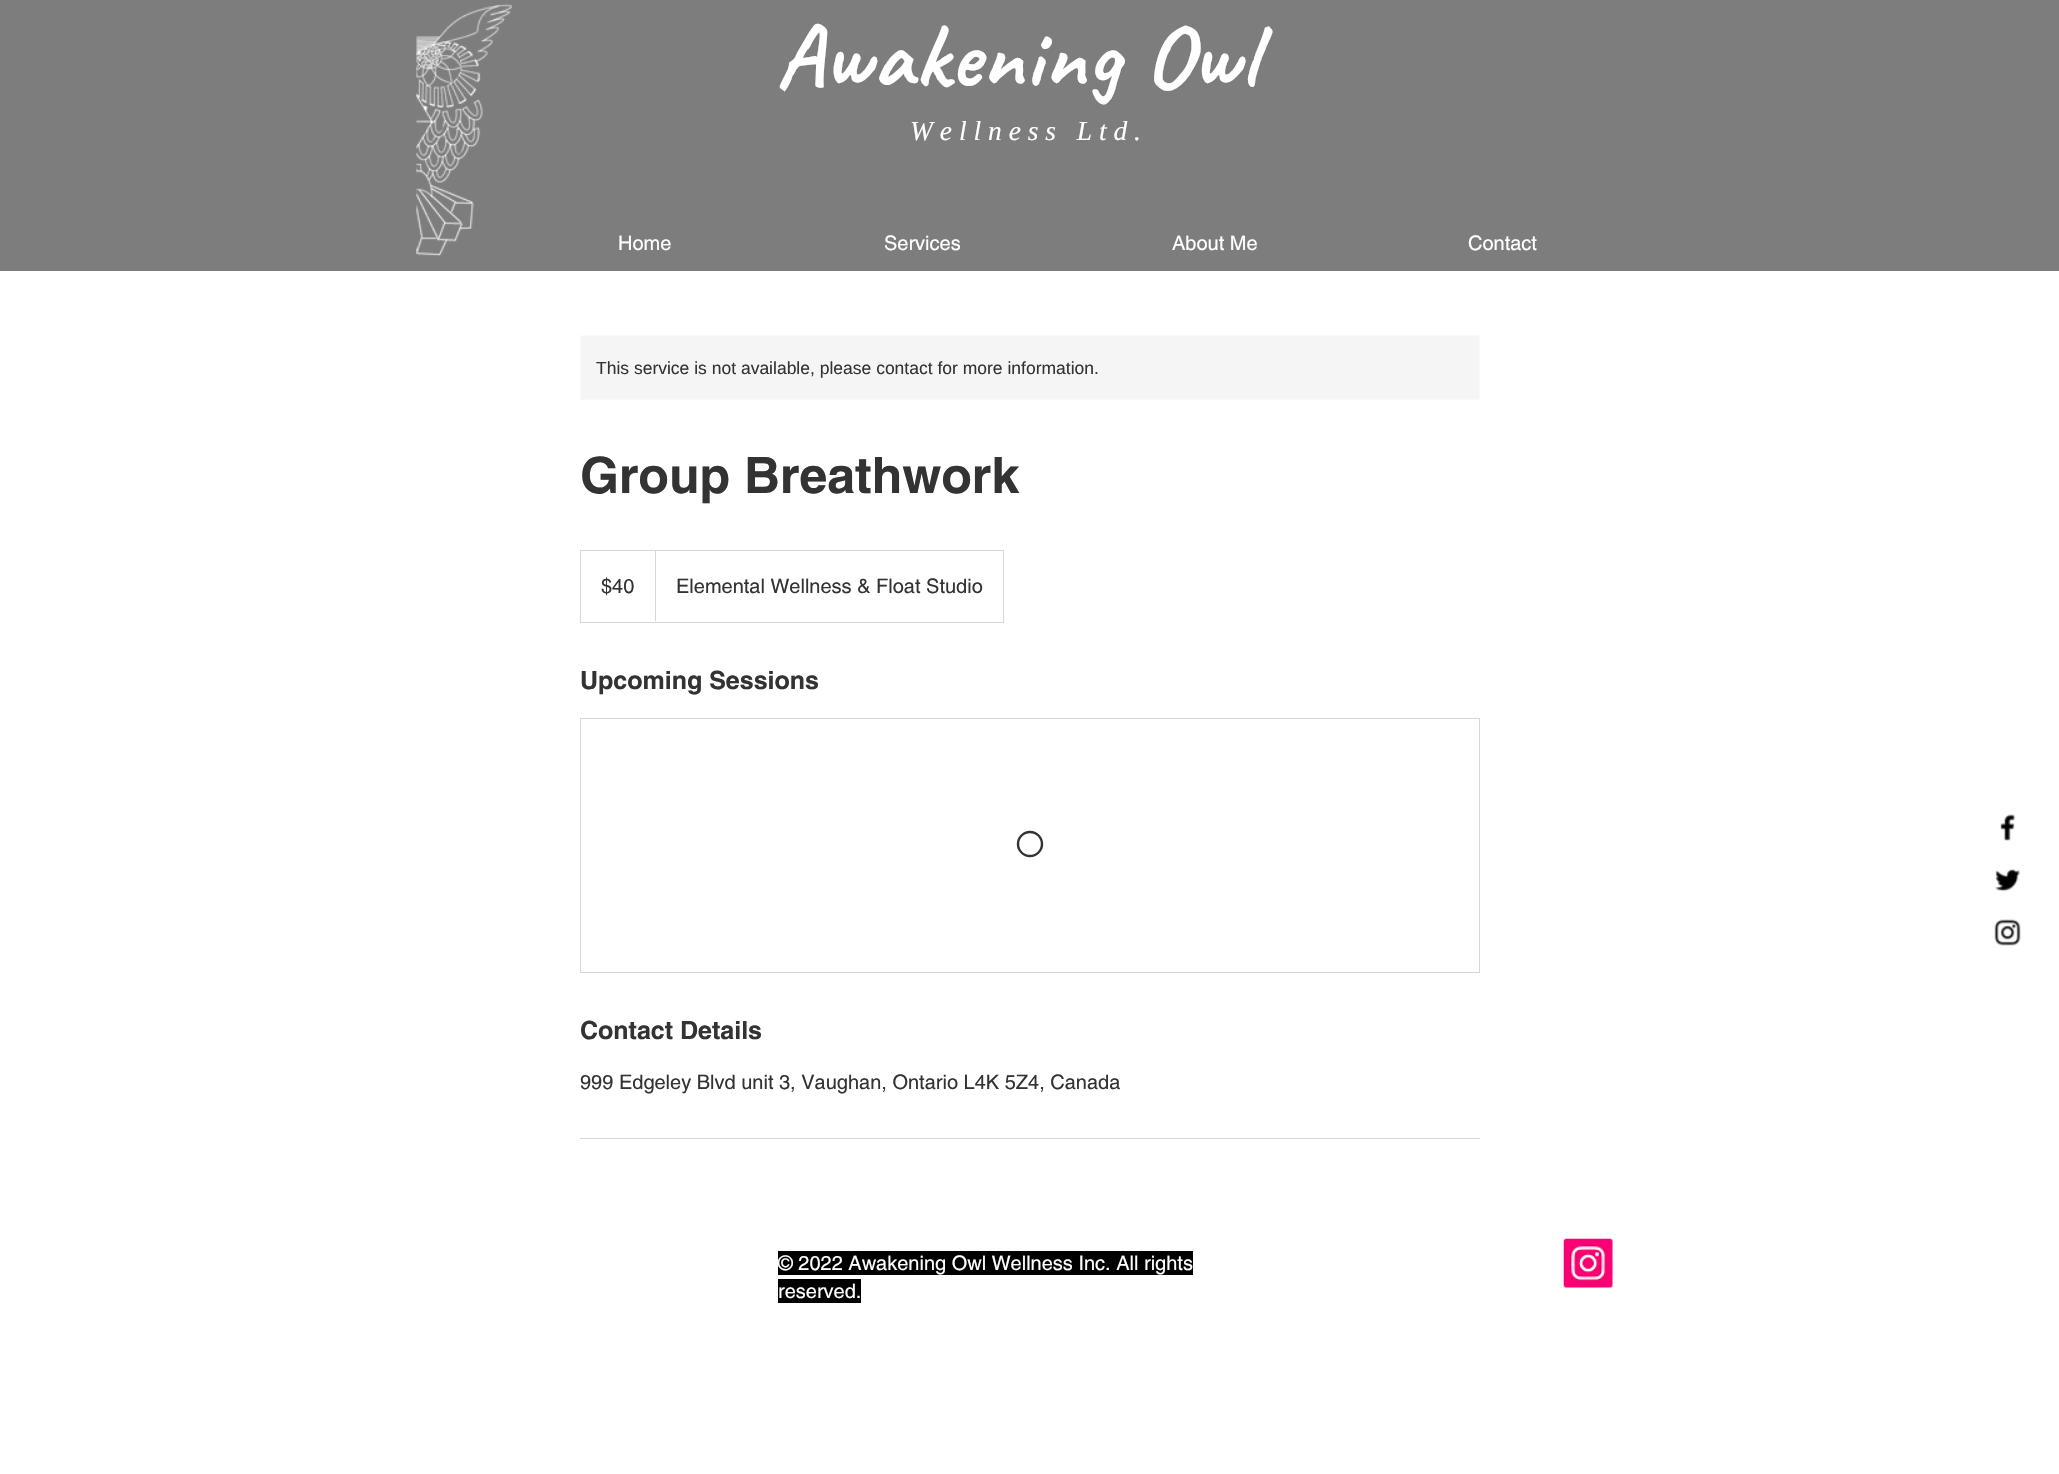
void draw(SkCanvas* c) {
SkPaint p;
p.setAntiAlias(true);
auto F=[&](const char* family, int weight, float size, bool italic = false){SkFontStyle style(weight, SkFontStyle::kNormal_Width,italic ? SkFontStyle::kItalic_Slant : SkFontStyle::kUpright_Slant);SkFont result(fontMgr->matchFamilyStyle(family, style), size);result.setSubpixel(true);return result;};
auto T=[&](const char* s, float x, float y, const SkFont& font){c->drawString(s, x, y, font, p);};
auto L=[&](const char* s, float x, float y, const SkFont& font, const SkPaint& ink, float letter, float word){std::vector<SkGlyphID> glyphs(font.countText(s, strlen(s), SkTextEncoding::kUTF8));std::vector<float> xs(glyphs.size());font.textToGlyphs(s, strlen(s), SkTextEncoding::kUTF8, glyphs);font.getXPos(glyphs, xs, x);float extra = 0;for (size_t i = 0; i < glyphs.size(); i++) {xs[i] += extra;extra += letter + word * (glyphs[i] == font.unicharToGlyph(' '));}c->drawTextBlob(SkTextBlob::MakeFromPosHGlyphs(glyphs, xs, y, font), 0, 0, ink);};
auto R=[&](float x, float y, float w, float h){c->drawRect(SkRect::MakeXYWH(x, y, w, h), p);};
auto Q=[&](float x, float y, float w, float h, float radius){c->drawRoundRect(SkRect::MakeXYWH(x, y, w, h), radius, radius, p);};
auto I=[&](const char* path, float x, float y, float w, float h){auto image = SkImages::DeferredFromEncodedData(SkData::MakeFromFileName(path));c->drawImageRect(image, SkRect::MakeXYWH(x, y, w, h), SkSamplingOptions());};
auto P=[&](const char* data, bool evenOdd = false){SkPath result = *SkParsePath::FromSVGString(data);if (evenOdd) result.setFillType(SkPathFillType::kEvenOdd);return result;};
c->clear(0xffffffff);
p.setColor(0xff7d7d7d);
R(0,0,2059,271);
I("1.png",416,3,96,254);
auto f1 = F("Caveat",700,90);
p.setColor(0xffffffff);
L("Awakening Owl",776,86,f1,p,1.75,0);
auto f2 = F("Liberation Serif",400,27.5,true);
L("Wellness Ltd.",910,140,f2,p,6.9,0);
auto f3 = F("helvetica",400,20);
T("Home",618,250,f3);
T("Services",884,250,f3);
T("About Me",1172,250,f3);
T("Contact",1468,250,f3);
p.setColor(0xfff5f5f5);
Q(580,335,900,65,2.5);
p.setStroke(true);
p.setStrokeWidth(1);
p.setColor(0x66ffffff);
c->drawRoundRect(SkRect::MakeXYWH(580.5,335.5,899,64),2,2,p);
auto f4 = F("Liberation Sans",400,17.5);
p.setStroke(false);
p.setColor(0xff333333);
T("This service is not available, please contact for more information.",596,374,f4);
auto f5 = F("helvetica",700,50);
T("Group Breathwork",580,493,f5);
p.setStroke(true);
p.setColor(0xffd6d6d6);
c->drawRect(SkRect::MakeXYWH(580.5,550.5,423,72),p);
p.setStroke(false);
p.setColor(0xff333333);
T("$40",601,593,f3);
p.setColor(0xffd6d6d6);
c->drawPath(P("M655 621v-71l1 1v70z"),p);
p.setColor(0xff333333);
T("Elemental Wellness & Float Studio",676,593,f3);
auto f6 = F("helvetica",700,25);
T("Upcoming Sessions",580,689,f6);
p.setStroke(true);
p.setColor(0xffd6d6d6);
c->drawRect(SkRect::MakeXYWH(580.5,718.5,899,254),p);
p.setStrokeWidth(2.4);
p.setColor(0xff333333);
c->drawCircle(1030,844,12,p);
p.setStroke(false);
T("Contact Details",580,1039,f6);
T("999 Edgeley Blvd unit 3, Vaughan, Ontario L4K 5Z4, Canada",580,1089,f3);
p.setColor(0xffd6d6d6);
R(580,1138,900,1);
I("2.png",2000,814,16,27);
I("3.png",1995,869,26,23);
I("4.png",1994,919,27,27);
p.setColor(0xff000000);
R(778,1251,415,24);
p.setColor(0xffffffff);
T("© 2022 Awakening Owl Wellness Inc. All rights",778,1270,f3);
p.setColor(0xff000000);
R(778,1279,83,24);
p.setColor(0xffffffff);
T("reserved.",778,1298,f3);
I("5.png",1563,1238,50,50);
}
